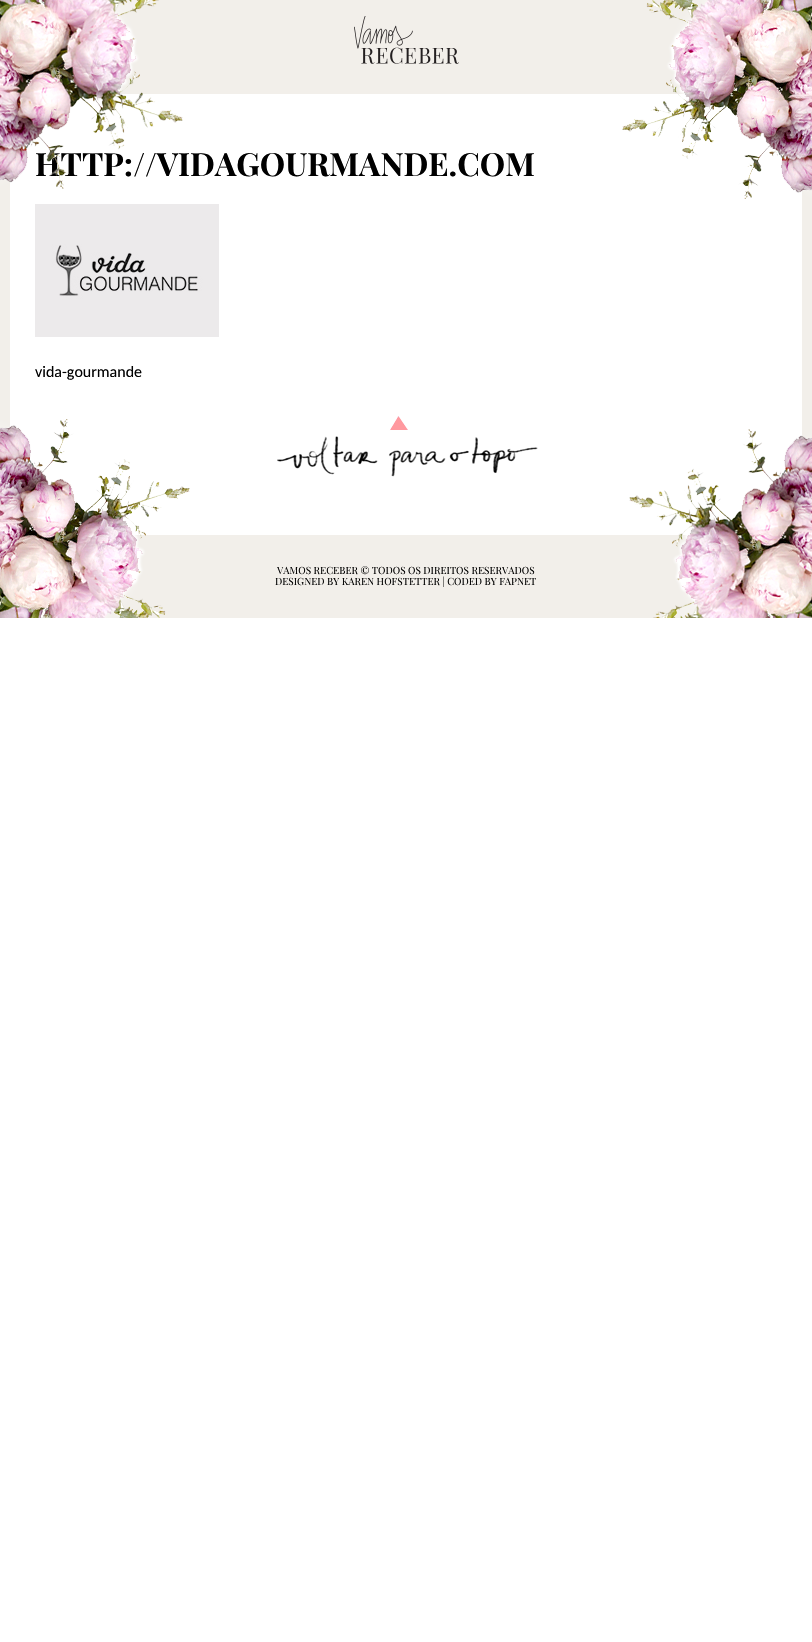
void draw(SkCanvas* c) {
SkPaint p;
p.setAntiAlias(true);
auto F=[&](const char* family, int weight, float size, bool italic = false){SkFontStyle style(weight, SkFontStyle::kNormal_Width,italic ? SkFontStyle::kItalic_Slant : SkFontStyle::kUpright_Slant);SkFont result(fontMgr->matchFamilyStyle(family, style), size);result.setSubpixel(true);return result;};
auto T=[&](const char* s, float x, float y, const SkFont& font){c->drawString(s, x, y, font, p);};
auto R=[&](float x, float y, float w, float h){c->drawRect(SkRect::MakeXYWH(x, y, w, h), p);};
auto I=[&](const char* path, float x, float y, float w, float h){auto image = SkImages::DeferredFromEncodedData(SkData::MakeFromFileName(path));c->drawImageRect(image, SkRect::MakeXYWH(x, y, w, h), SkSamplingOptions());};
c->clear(0xffffffff);
p.setColor(0xfff2efea);
R(0,0,812,618);
p.setColor(0xffffffff);
R(10,94,792,441);
auto f1 = F("Playfair Display SC",700,32);
p.setColor(0xff000000);
T("HTTP://VIDAGOURMANDE.COM",35,176,f1);
I("1.png",0,0,183,189);
I("2.png",354,16,105,48);
I("3.png",622,0,190,199);
I("4.png",35,204,184,133);
auto f2 = F("Carlito",400,16);
T("vida-gourmande",35,377,f2);
I("5.png",277,416,261,61);
I("6.png",0,419,190,199);
auto f3 = F("Playfair Display SC",400,10);
T("VAMOS RECEBER © TODOS OS DIREITOS RESERVADOS",277,574,f3);
T("DESIGNED BY KAREN HOFSTETTER | CODED BY FAPNET",275,585,f3);
I("7.png",629,429,183,189);
}
